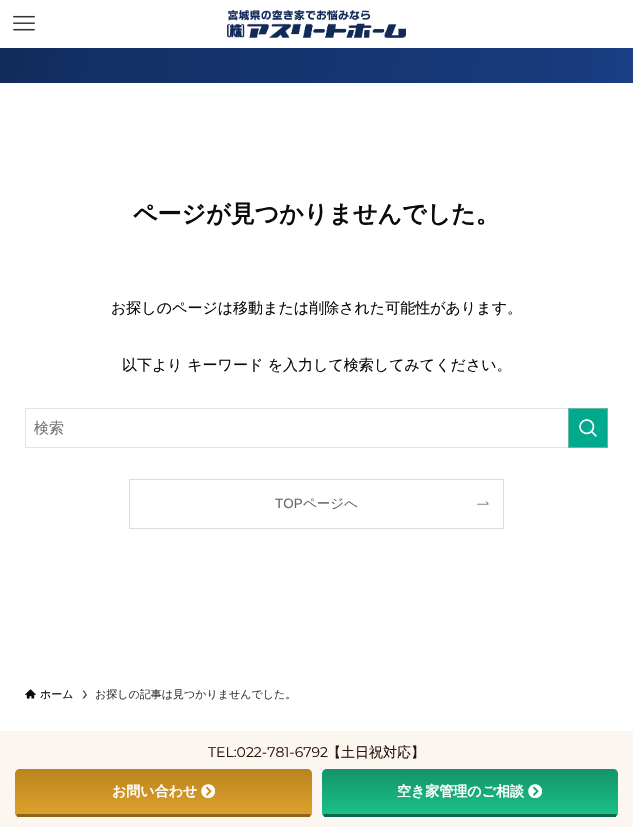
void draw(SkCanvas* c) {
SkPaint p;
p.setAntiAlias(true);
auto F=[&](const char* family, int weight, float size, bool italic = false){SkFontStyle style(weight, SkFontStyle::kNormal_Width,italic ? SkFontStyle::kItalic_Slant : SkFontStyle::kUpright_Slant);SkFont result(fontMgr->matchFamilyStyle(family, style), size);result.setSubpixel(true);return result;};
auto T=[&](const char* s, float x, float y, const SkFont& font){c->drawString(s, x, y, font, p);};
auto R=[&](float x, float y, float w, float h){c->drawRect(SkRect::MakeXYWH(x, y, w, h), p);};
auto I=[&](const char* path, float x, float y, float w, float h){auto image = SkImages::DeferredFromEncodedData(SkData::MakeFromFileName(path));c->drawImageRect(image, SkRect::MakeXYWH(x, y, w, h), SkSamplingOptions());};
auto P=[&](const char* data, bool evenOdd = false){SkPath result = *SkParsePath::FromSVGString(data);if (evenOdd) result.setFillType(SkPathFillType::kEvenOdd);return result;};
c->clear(0xffffffff);
I("1.png",13,15,22,16);
I("2.png",227,10,179,28);
{
const SkColor colors[] = {0xff112a59,0xff132e62,0xff183b7d,0xff1a3f86};
const float stops[] = {0,.1,.9,1};
const SkPoint ends[] = {{6.6,11}, {626,120}};
p.setShader(SkGradientShader::MakeLinear(ends, colors, stops, 4, SkTileMode::kClamp));
p.setAlpha(255);
}
R(0,48,633,35);
auto f1 = F("WenQuanYi Zen Hei",700,24);
p.setShader(nullptr);
p.setColor(0xff0a0a0a);
T("ページが見つかりませんでした。",133,222,f1);
auto f2 = F("WenQuanYi Zen Hei",500,15);
T("お探しのページは移動または削除された可能性があります。",111,313,f2);
T("以下より キーワード を入力して検索してみてください。",122,370,f2);
p.setStroke(true);
p.setStrokeWidth(1);
p.setColor(0xffe3e3e3);
c->drawRect(SkRect::MakeXYWH(25.5,408.5,582,39),p);
p.setStroke(false);
p.setColor(0xff757575);
T("検索",34,433,f2);
p.setColor(0xff01aa8e);
c->drawRect(SkRect::MakeXYWH(568.5,408.5,39,39),p);
p.setStroke(true);
p.setColor(0xff64b9ab);
c->drawRect(SkRect::MakeXYWH(568.5,408.5,39,39),p);
I("3.png",579,419,18,18);
p.setColor(0xffdcdcdc);
c->drawRect(SkRect::MakeXYWH(129.5,479.5,374,49),p);
auto f3 = F("Liberation Sans",400,13.5);
p.setStroke(false);
p.setColor(0xff666666);
T("TOP",275,508,f3);
auto f4 = F("WenQuanYi Zen Hei",500,13.5);
T("ページへ",303,508,f4);
I("4.png",477,501,12,4);
I("5.png",25,689,11,10);
auto f5 = F("WenQuanYi Zen Hei",500,11);
p.setColor(0xff0a0a0a);
T("ホーム",40,698,f5);
p.setColor(0xff3b3b3b);
c->drawPath(P("M84 690.5h-1.5l3 4l-3 4h1.5l3-3.5z"),p);
T("お探しの記事は見つかりませんでした。",95,698,f5);
p.setColor(0xfffcf6f1);
R(0,731,633,96);
auto f6 = F("Montserrat",100,14);
p.setColor(0xff2d140a);
T("TEL:022-781-6792",208,757,f6);
auto f7 = F("WenQuanYi Zen Hei",500,14);
T("【土日祝対応】",327,757,f7);
c->save();
c->clipPath(P("M19 769h289c2 0 4 2 4 4v40c0 2-2 4-4 4h-289c-2 0-4-2-4-4v-40c0-2 2-4 4-4z"),true);
{
const SkColor colors[] = {0xffba831d,0xffdea02c};
const float stops[] = {0,1};
const SkPoint ends[] = {{164,769}, {164,814}};
p.setShader(SkGradientShader::MakeLinear(ends, colors, stops, 2, SkTileMode::kClamp));
p.setAlpha(255);
}
c->drawPath(P("M19 769h289c2 0 4 2 4 4v41h-297v-41c0-2 2-4 4-4z"),p);
{
const SkColor colors[] = {0xffba831d,0xffdea02c};
const float stops[] = {0,1};
const SkPoint ends[] = {{164,814}, {164,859}};
p.setShader(SkGradientShader::MakeLinear(ends, colors, stops, 2, SkTileMode::kClamp));
p.setAlpha(255);
}
R(15,814,297,3);
c->restore();
p.setShader(nullptr);
p.setColor(0xff8e6416);
R(17,814,293,3);
auto f8 = F("WenQuanYi Zen Hei",700,14);
p.setColor(0xffffffff);
T("お問い合わせ",112,796,f8);
I("6.png",201,784,14,14);
c->save();
c->clipPath(P("M326 769h288c2 0 4 2 4 4v40c0 2-2 4-4 4h-288c-2 0-4-2-4-4v-40c0-2 2-4 4-4z"),true);
{
const SkColor colors[] = {0xff149369,0xff1ac089};
const float stops[] = {0,1};
const SkPoint ends[] = {{470,769}, {470,814}};
p.setShader(SkGradientShader::MakeLinear(ends, colors, stops, 2, SkTileMode::kClamp));
p.setAlpha(255);
}
c->drawPath(P("M326 769h288c2 0 4 2 4 4v41h-296v-41c0-2 2-4 4-4z"),p);
{
const SkColor colors[] = {0xff149369,0xff1ac089};
const float stops[] = {0,1};
const SkPoint ends[] = {{470,814}, {470,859}};
p.setShader(SkGradientShader::MakeLinear(ends, colors, stops, 2, SkTileMode::kClamp));
p.setAlpha(255);
}
R(322,814,296,3);
c->restore();
p.setShader(nullptr);
p.setColor(0xff0e6649);
R(324,814,292,3);
p.setColor(0xffffffff);
T("空き家管理のご相談",397,796,f8);
I("7.png",528,784,14,14);
}
